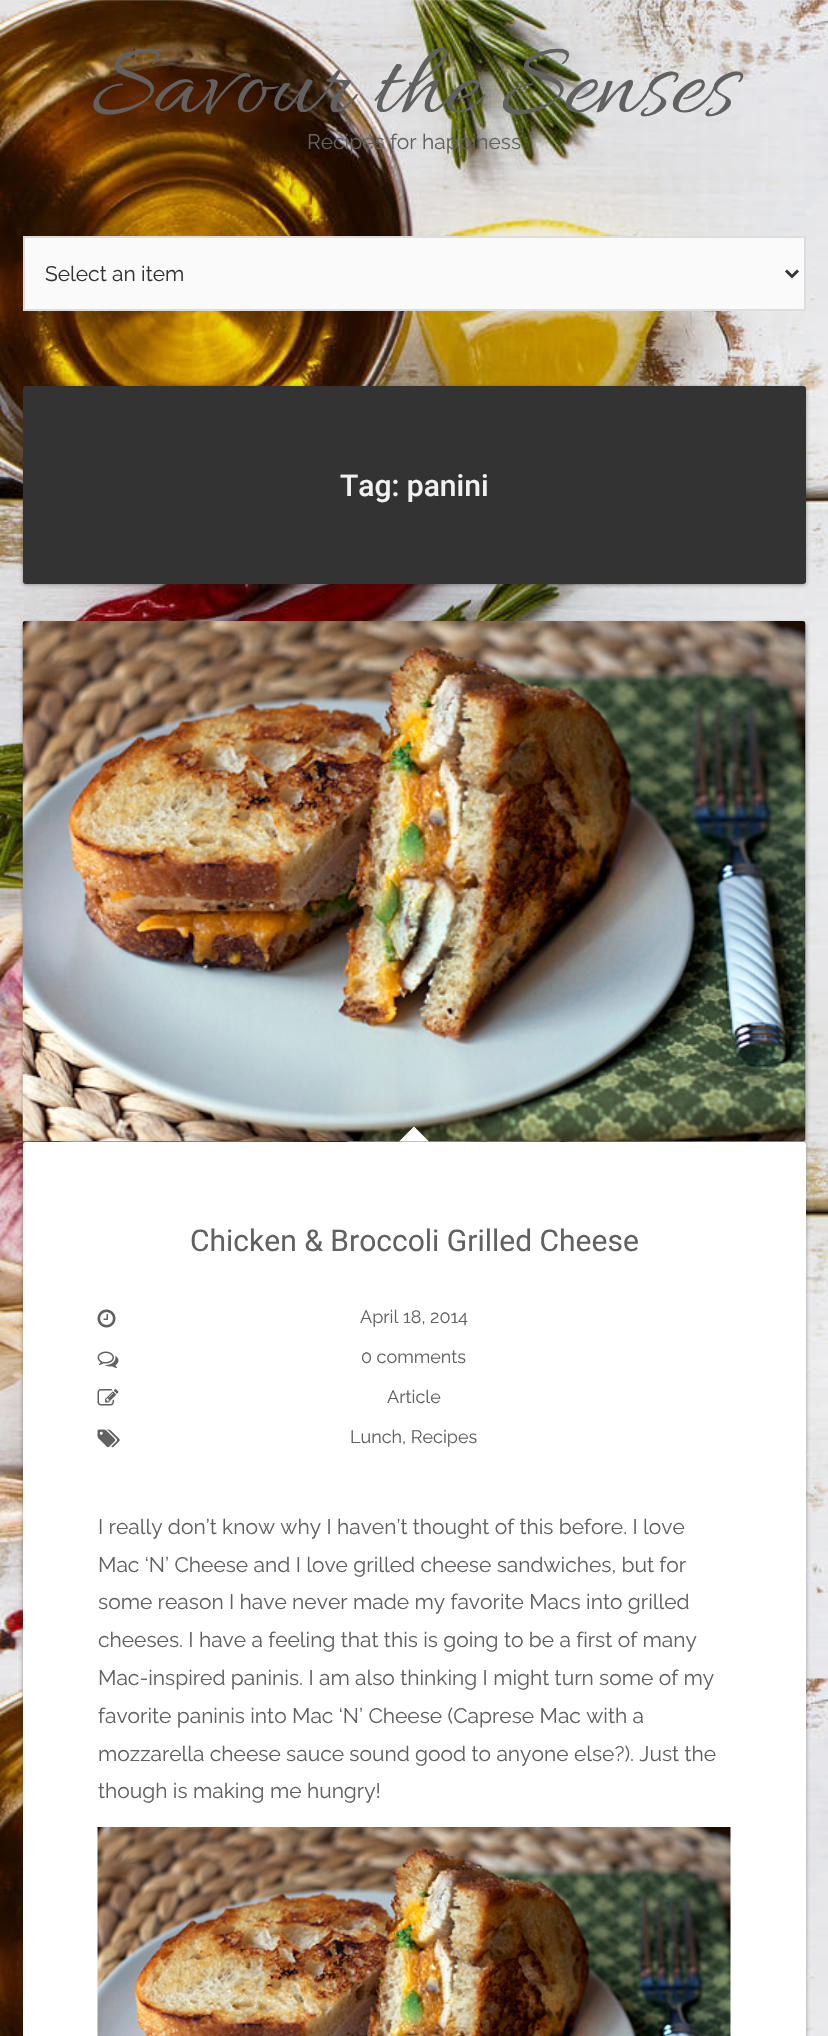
void draw(SkCanvas* c) {
SkPaint p;
p.setAntiAlias(true);
auto F=[&](const char* family, int weight, float size, bool italic = false){SkFontStyle style(weight, SkFontStyle::kNormal_Width,italic ? SkFontStyle::kItalic_Slant : SkFontStyle::kUpright_Slant);SkFont result(fontMgr->matchFamilyStyle(family, style), size);result.setSubpixel(true);return result;};
auto T=[&](const char* s, float x, float y, const SkFont& font){c->drawString(s, x, y, font, p);};
auto Q=[&](float x, float y, float w, float h, float radius){c->drawRoundRect(SkRect::MakeXYWH(x, y, w, h), radius, radius, p);};
auto I=[&](const char* path, float x, float y, float w, float h){auto image = SkImages::DeferredFromEncodedData(SkData::MakeFromFileName(path));c->drawImageRect(image, SkRect::MakeXYWH(x, y, w, h), SkSamplingOptions());};
auto P=[&](const char* data, bool evenOdd = false){SkPath result = *SkParsePath::FromSVGString(data);if (evenOdd) result.setFillType(SkPathFillType::kEvenOdd);return result;};
c->clear(0xffffffff);
I("1.png",0,0,828,2036);
auto f1 = F("Allura",400,105);
p.setColor(0xff616161);
T("Savour the Senses",92,111,f1);
auto f2 = F("Raleway",400,21);
T("Recipes for happiness",307,149,f2);
p.setColor(0xfffafafa);
c->drawRect(SkRect::MakeXYWH(24,237,781,73),p);
p.setStroke(true);
p.setStrokeWidth(2);
p.setColor(0xffdddddd);
c->drawRect(SkRect::MakeXYWH(24,237,781,73),p);
p.setStrokeWidth(3);
p.setColor(0xff333333);
c->drawPath(P("M786 270.5l6 6l6-6"),p);
p.setStroke(false);
T("Select an item",45,281,f2);
p.setColor(0x66221919);
p.setMaskFilter(SkMaskFilter::MakeBlur(kNormal_SkBlurStyle, 2));
c->drawRoundRect(SkRect::MakeXYWH(23,387,783,198),3,3,p);
p.setMaskFilter(nullptr);
p.setColor(0xff333333);
Q(23,386,783,198,3);
auto f3 = F("Roboto",500,30);
p.setColor(0xfff1f1f1);
T("Tag: panini",340,496,f3);
p.setColor(0x66221919);
p.setMaskFilter(SkMaskFilter::MakeBlur(kNormal_SkBlurStyle, 2));
c->drawRoundRect(SkRect::MakeXYWH(23,623,783,520),3,3,p);
p.setMaskFilter(nullptr);
I("2.png",22,621,784,521);
p.setMaskFilter(SkMaskFilter::MakeBlur(kNormal_SkBlurStyle, 2));
c->drawRoundRect(SkRect::MakeXYWH(23,1143,783,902),3,3,p);
p.setMaskFilter(nullptr);
p.setColor(0xffffffff);
c->drawPath(P("M429 1141.5h-30l15-15z"),p);
Q(23,1142,783,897,3);
auto f4 = F("Roboto",400,30);
p.setColor(0xff616161);
T("Chicken & Broccoli Grilled Cheese",190,1251,f4);
I("3.png",97,1309,19,19);
auto f5 = F("Raleway",400,18);
T("April 18, 2014",360,1323,f5);
I("4.png",97,1351,22,17);
T("0 comments",361,1363,f5);
I("5.png",97,1389,22,17);
T("Article",387,1403,f5);
I("6.png",97,1429,23,19);
T("Lunch, Recipes",350,1443,f5);
T("I really don’t know why I haven’t thought of this before. I love",98,1534,f2);
T("Mac ‘N’ Cheese and I love grilled cheese sandwiches, but for",98,1572,f2);
T("some reason I have never made my favorite Macs into grilled",98,1609,f2);
T("cheeses. I have a feeling that this is going to be a first of many",98,1647,f2);
T("Mac-inspired paninis. I am also thinking I might turn some of my",98,1685,f2);
T("favorite paninis into Mac ‘N’ Cheese (Caprese Mac with a",98,1723,f2);
T("mozzarella cheese sauce sound good to anyone else?). Just the",98,1761,f2);
T("though is making me hungry!",98,1798,f2);
I("7.png",97,1827,634,209);
}
